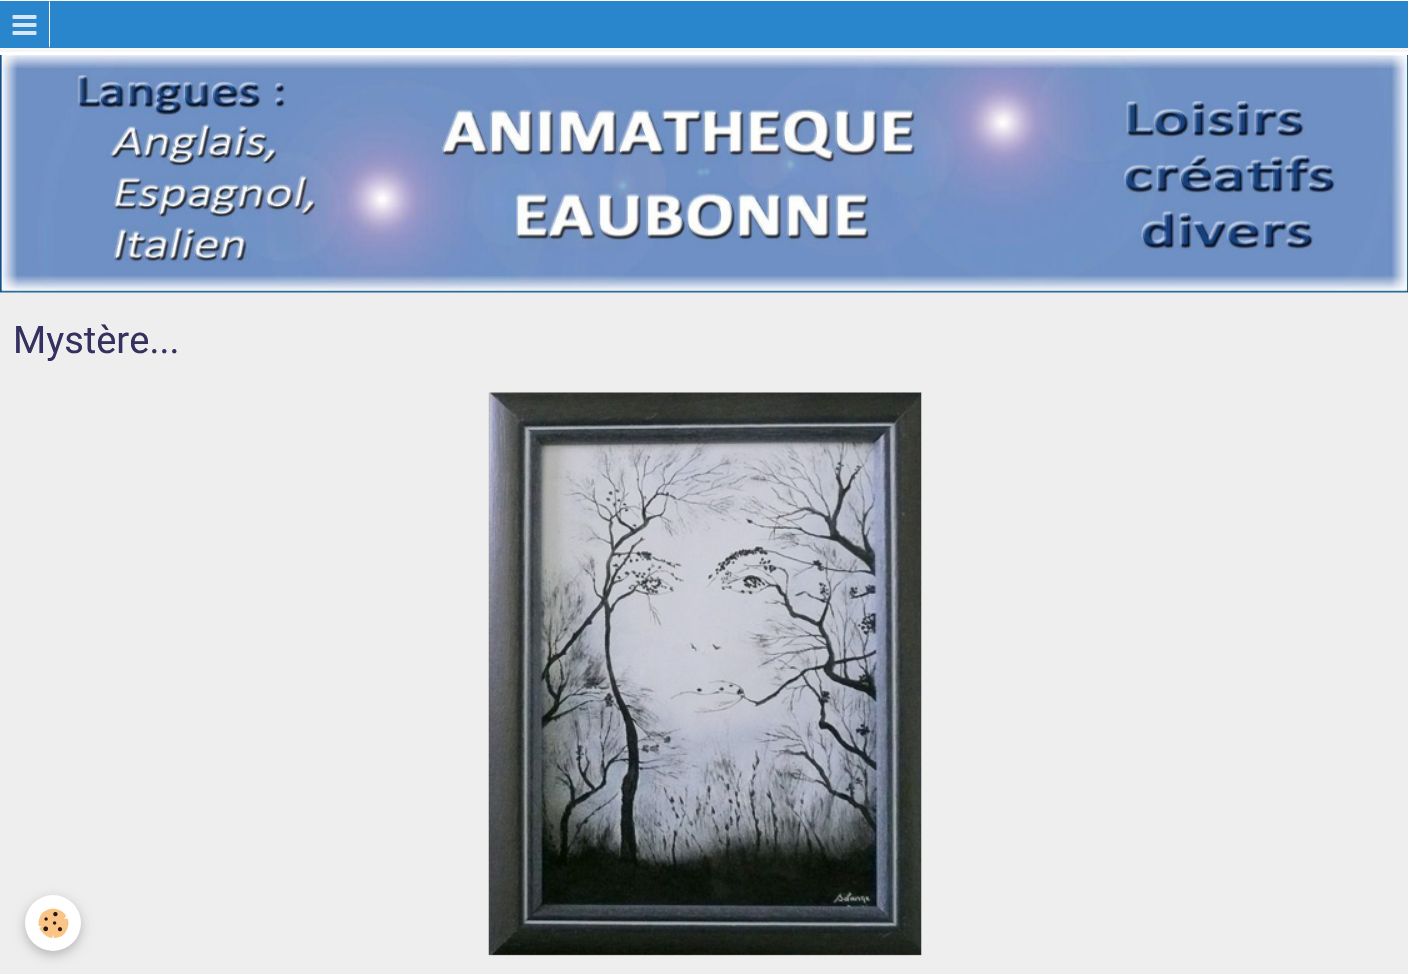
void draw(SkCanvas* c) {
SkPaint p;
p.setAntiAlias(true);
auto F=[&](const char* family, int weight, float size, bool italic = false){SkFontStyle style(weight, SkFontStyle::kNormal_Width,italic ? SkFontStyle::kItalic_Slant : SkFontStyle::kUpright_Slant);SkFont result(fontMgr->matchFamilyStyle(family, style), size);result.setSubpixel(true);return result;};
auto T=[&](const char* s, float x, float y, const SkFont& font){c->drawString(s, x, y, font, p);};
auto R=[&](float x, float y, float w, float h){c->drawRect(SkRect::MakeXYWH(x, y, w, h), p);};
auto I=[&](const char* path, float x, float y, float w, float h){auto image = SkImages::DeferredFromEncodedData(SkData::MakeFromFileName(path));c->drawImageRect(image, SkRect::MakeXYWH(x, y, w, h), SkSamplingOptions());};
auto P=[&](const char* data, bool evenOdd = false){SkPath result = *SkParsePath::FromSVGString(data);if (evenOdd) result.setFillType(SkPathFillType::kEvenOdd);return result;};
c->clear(0xffffffff);
I("1.png",0,292,1408,1);
p.setColor(0xfff6f6f6);
R(0,48,1408,4);
p.setColor(0xff2986cc);
R(0,1,1408,47);
p.setColor(0xffffffff);
c->drawPath(P("M50 1v47l-1-2v-44z"),p);
I("2.png",12,15,25,20);
I("3.png",0,55,1408,238);
p.setColor(0xffeeeeee);
R(0,293,1408,681);
auto f1 = F("Roboto",400,38);
p.setColor(0xff343160);
T("Mystère...",13,353,f1);
I("4.png",488,392,434,564);
p.setColor(0x3d000000);
p.setMaskFilter(SkMaskFilter::MakeBlur(kNormal_SkBlurStyle, 6));
c->drawRoundRect(SkRect::MakeXYWH(25,899,56,56),28,28,p);
p.setMaskFilter(nullptr);
p.setColor(0xffffffff);
c->drawCircle(53,923,28,p);
I("5.png",38,908,31,30);
}
